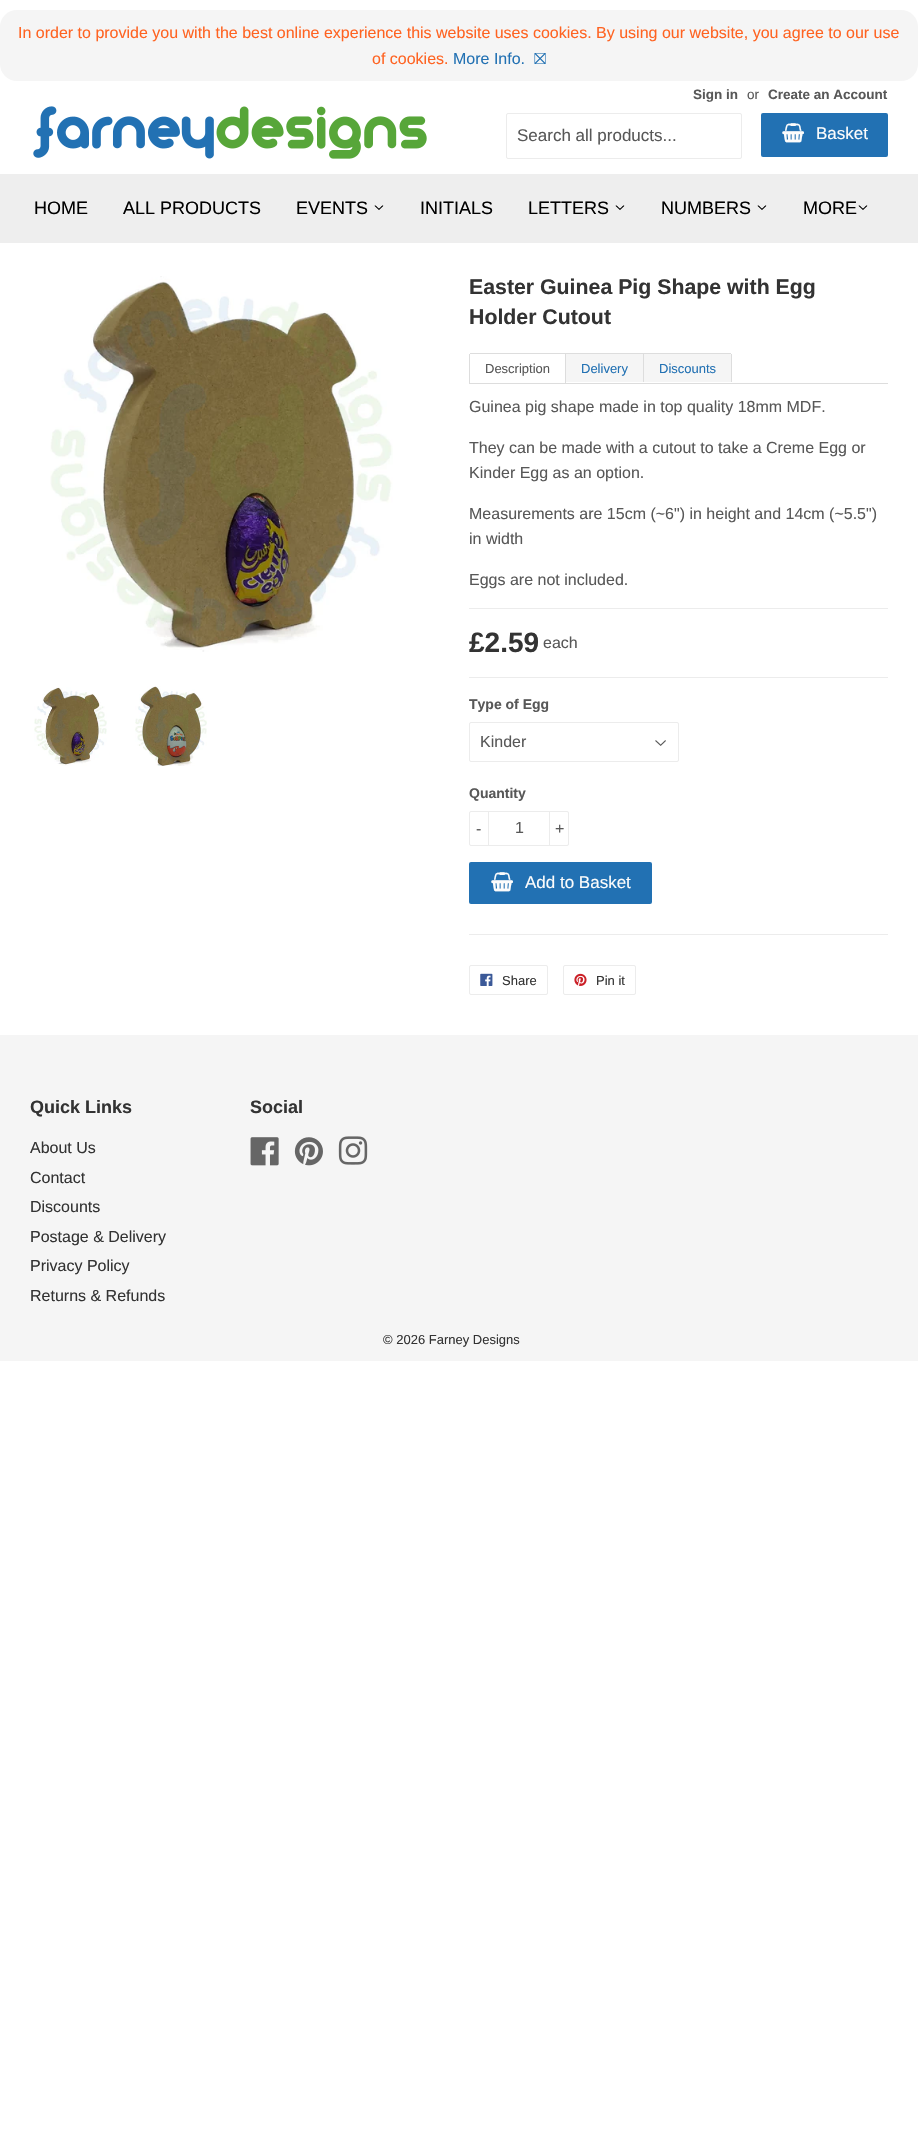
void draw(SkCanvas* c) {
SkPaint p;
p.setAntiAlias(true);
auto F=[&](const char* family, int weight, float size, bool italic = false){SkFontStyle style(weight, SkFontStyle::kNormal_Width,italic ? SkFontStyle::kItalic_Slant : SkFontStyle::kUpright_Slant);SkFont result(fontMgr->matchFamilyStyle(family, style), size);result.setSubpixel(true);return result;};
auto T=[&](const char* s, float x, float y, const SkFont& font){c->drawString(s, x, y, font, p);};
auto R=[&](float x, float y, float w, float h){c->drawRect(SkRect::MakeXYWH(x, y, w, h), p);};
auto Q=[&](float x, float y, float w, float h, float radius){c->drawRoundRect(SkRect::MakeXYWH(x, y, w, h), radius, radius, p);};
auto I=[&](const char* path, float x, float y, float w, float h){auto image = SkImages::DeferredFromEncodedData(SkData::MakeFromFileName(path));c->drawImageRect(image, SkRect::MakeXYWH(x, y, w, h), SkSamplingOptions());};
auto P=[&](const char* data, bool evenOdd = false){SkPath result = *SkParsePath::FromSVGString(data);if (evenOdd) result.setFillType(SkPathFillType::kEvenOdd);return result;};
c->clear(0xffffffff);
p.setColor(0xfff5f5f5);
Q(0,10,918,71,17);
auto f1 = F("Liberation Sans",400,16);
p.setColor(0xffff6321);
T("In order to provide you with the best online experience this website uses cookies. By using our website, you agree to our use",18,38,f1);
T("of cookies.",372,64,f1);
p.setColor(0xff2271b3);
T("More Info.",453,64,f1);
auto f2 = F("FreeSerif",400,16);
T("⛝",534,64,f2);
I("1.png",33,106,394,53);
auto f3 = F("Liberation Sans",700,13.5);
p.setColor(0xff585858);
T("Sign in",693,99,f3);
auto f4 = F("Liberation Sans",400,13.5);
T("or",747,99,f4);
T("Create an Account",768,99,f3);
p.setStroke(true);
p.setStrokeWidth(1);
p.setColor(0xffececec);
c->drawRoundRect(SkRect::MakeXYWH(506.5,113.5,235,45),1.5,1.5,p);
auto f5 = F("Liberation Sans",400,17);
p.setStroke(false);
p.setColor(0xff585858);
T("Search all products...",517,141,f5);
p.setColor(0xff2271b3);
Q(761,113,127,44,2);
auto f6 = F("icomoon",400,19);
p.setColor(0xfffcfcfc);
T("[",781,141,f6);
T("Basket",816,139,f5);
p.setColor(0xffeeeeee);
R(0,174,918,69);
auto f7 = F("Liberation Sans",400,18);
p.setColor(0xff000000);
T("HOME",34,214,f7);
T("ALL PRODUCTS",123,214,f7);
T("EVENTS",296,214,f7);
auto f8 = F("icomoon",400,12);
T("4",373,212,f8);
T("INITIALS",420,214,f7);
T("LETTERS",528,214,f7);
T("4",614,212,f8);
T("NUMBERS",661,214,f7);
T("4",756,212,f8);
T("MORE",803,214,f7);
T("4",857,212,f8);
I("2.png",50,276,343,376);
I("3.png",34,687,73,79);
I("4.png",135,686,72,80);
auto f9 = F("Liberation Sans",700,21.3);
p.setColor(0xff333333);
T("Easter Guinea Pig Shape with Egg",469,294,f9);
T("Holder Cutout",469,324,f9);
p.setColor(0xffdddddd);
R(469,383,419,1);
R(565,354,1,29);
R(469,354,1,29);
auto f10 = F("Liberation Sans",400,13);
p.setColor(0xff585858);
T("Description",485,373,f10);
p.setColor(0xfff5f5f5);
R(566,354,77,28);
p.setColor(0xffdddddd);
R(470,353,261,1);
p.setColor(0xff2271b3);
T("Delivery",581,373,f10);
p.setColor(0xfff5f5f5);
c->drawPath(P("M644 354h86c.5 0 1 .5 1 1v27h-87z"),p);
p.setColor(0xffdddddd);
R(731,354,1,28);
R(643,353,1,29);
p.setColor(0xff2271b3);
T("Discounts",659,373,f10);
p.setColor(0xff585858);
T("Guinea pig shape made in top quality 18mm MDF.",469,412,f1);
T("They can be made with a cutout to take a Creme Egg or",469,453,f1);
T("Kinder Egg as an option.",469,478,f1);
T("Measurements are 15cm (~6\") in height and 14cm (~5.5\")",469,519,f1);
T("in width",469,544,f1);
T("Eggs are not included.",469,585,f1);
p.setColor(0xffececec);
R(469,608,419,1);
auto f11 = F("Liberation Sans",700,28);
p.setColor(0xff333333);
T("£2.59",469,652,f11);
p.setColor(0xff585858);
T("each",543,648,f1);
p.setColor(0xffececec);
R(469,677,419,1);
auto f12 = F("Liberation Sans",700,14);
p.setColor(0xff585858);
T("Type of Egg",469,709,f12);
I("5.png",655,740,11,6);
p.setStroke(true);
p.setColor(0xffececec);
c->drawRoundRect(SkRect::MakeXYWH(469.5,722.5,209,39),1.5,1.5,p);
p.setStroke(false);
p.setColor(0xff585858);
T("Kinder",480,747,f1);
T("Quantity",469,798,f12);
p.setStroke(true);
p.setColor(0xffececec);
c->drawRoundRect(SkRect::MakeXYWH(469.5,811.5,99,34),1.5,1.5,p);
p.setStroke(false);
R(488,811,1,35);
p.setColor(0xff585858);
T("-",476,834,f1);
T("1",515,833,f1);
p.setColor(0xffececec);
R(549,811,1,35);
p.setColor(0xff585858);
T("+",555,834,f1);
p.setColor(0xff2271b3);
Q(469,862,183,42,2);
p.setColor(0xfffcfcfc);
T("[",490,890,f6);
T("Add to Basket",525,888,f5);
p.setColor(0xffececec);
R(469,934,419,1);
p.setStroke(true);
c->drawRoundRect(SkRect::MakeXYWH(469.5,965.5,78,29),1.5,1.5,p);
I("6.png",480,973,13,13);
p.setStroke(false);
p.setColor(0xff333333);
T("Share",502,985,f10);
p.setStroke(true);
p.setColor(0xffececec);
c->drawRoundRect(SkRect::MakeXYWH(563.5,965.5,72,29),1.5,1.5,p);
I("7.png",574,973,13,13);
p.setStroke(false);
p.setColor(0xff333333);
T("Pin it",596,985,f10);
p.setColor(0xfff5f5f5);
R(0,1035,918,326);
auto f13 = F("Liberation Sans",700,18);
p.setColor(0xff333333);
T("Quick Links",30,1113,f13);
T("About Us",30,1153,f1);
T("Contact",30,1183,f1);
T("Discounts",30,1212,f1);
T("Postage & Delivery",30,1242,f1);
T("Privacy Policy",30,1271,f1);
T("Returns & Refunds",30,1301,f1);
T("Social",250,1113,f13);
I("8.png",250,1137,29,29);
I("9.png",294,1137,29,29);
I("10.png",338,1136,30,29);
T("© 2026 Farney Designs",383,1344,f10);
}
